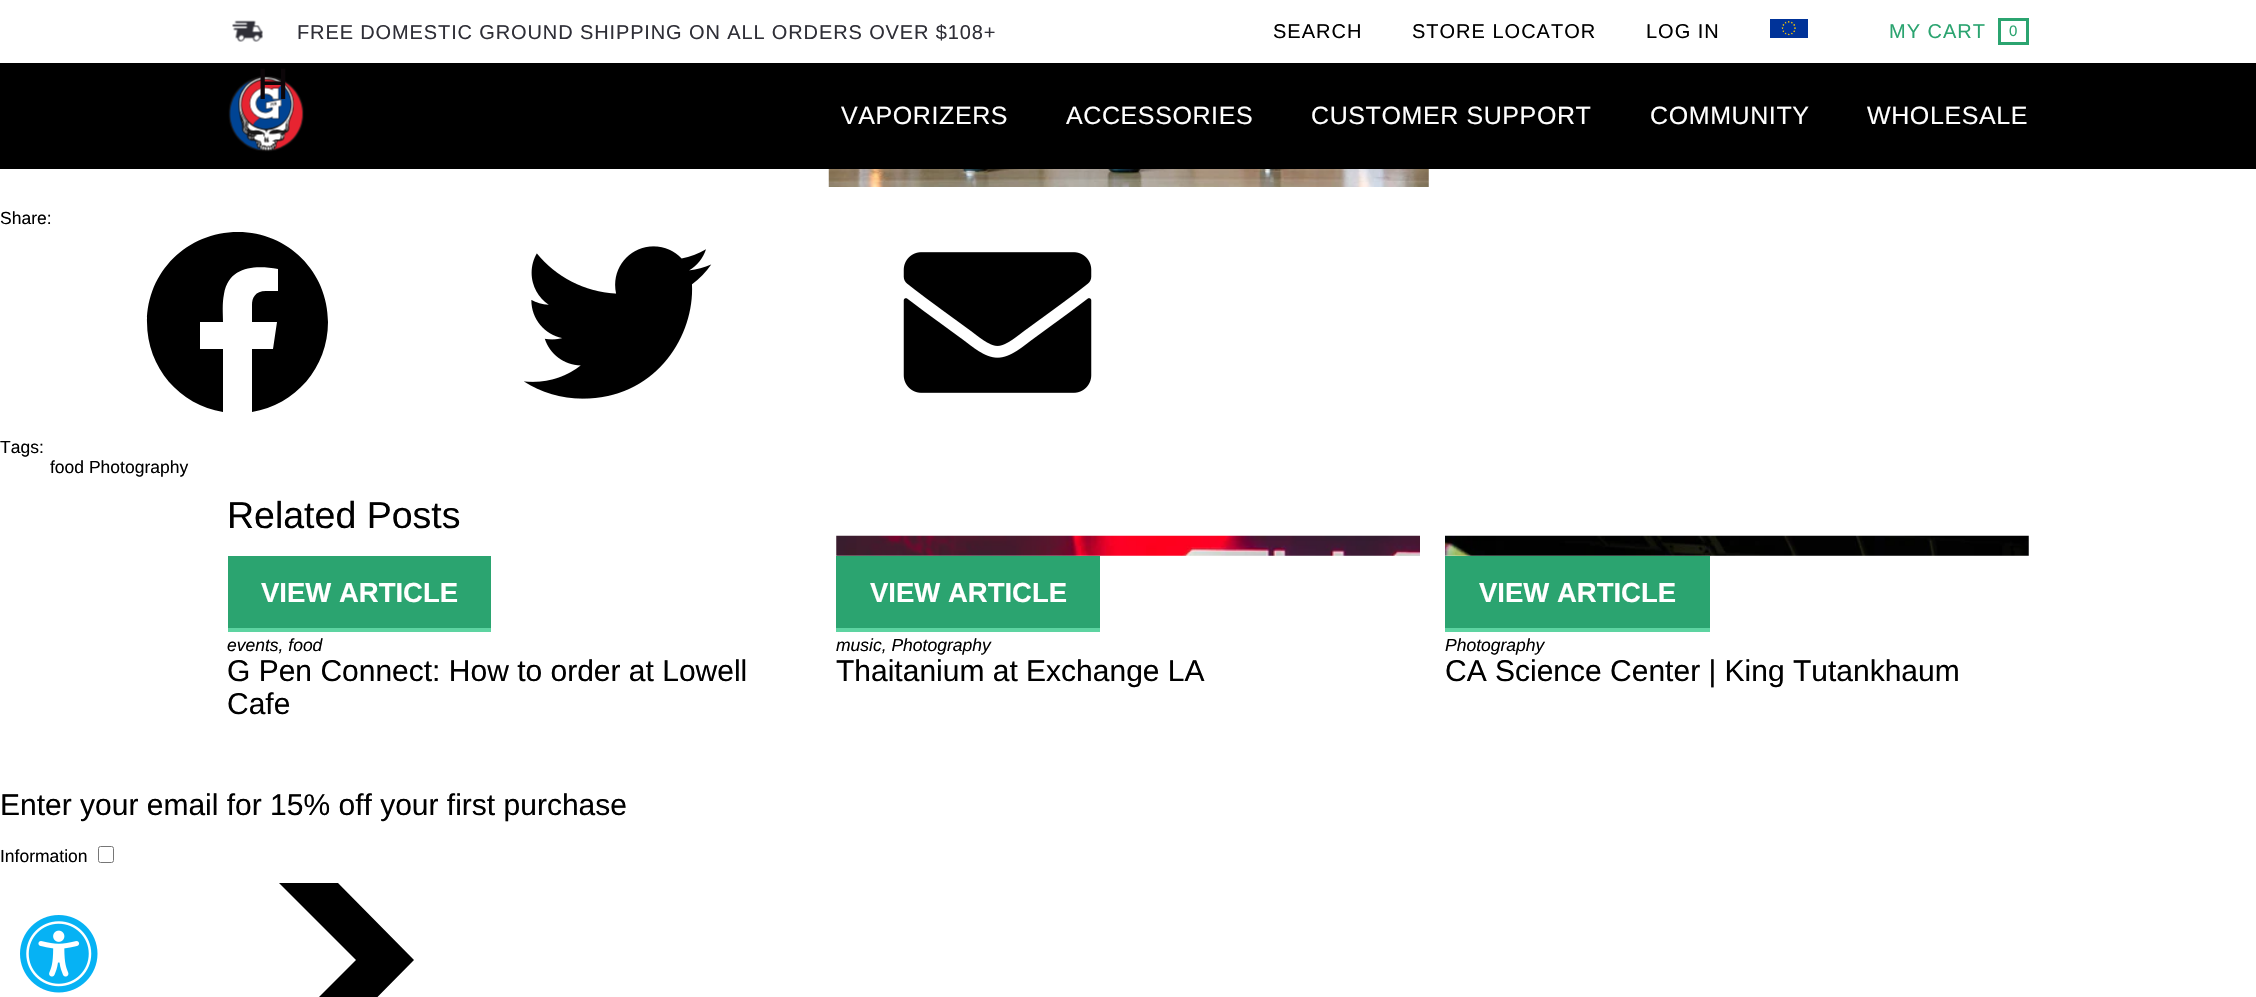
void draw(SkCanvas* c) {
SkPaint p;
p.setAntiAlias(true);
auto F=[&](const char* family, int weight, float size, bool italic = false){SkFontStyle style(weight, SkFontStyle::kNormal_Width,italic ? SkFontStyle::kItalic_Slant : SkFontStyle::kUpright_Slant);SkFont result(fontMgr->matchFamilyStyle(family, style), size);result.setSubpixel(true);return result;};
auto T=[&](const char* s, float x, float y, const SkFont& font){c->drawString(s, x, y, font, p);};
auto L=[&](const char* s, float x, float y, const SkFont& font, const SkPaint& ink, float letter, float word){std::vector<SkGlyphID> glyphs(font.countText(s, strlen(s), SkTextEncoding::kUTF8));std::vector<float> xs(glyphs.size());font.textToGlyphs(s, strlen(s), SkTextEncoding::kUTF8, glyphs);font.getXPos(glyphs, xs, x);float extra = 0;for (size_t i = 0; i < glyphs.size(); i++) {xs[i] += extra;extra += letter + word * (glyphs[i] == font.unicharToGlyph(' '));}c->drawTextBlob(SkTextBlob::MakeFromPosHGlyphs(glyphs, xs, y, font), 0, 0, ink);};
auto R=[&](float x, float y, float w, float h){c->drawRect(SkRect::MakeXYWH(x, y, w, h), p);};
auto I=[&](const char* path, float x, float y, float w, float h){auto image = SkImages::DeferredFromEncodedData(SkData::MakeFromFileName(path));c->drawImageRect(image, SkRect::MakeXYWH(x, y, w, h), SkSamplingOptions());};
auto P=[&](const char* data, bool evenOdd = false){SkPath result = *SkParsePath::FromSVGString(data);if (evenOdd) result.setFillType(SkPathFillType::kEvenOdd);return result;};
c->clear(0xffffffff);
p.setColor(0xff000000);
R(0,63,2256,106);
I("3.png",228,76,76,76);
auto f1 = F("Liberation Sans",400,44);
p.setColor(0xff0c0609);
T("H",257,99,f1);
I("1.png",232,20,31,22);
auto f2 = F("Liberation Sans",400,20);
p.setColor(0xff2f2f37);
L("FREE DOMESTIC GROUND SHIPPING ON ALL ORDERS OVER $108+",297,39,f2,p,.88,0);
p.setColor(0xff000000);
L("SEARCH",1273,38,f2,p,1,0);
L("STORE LOCATOR",1412,38,f2,p,1,0);
L("LOG IN",1646,38,f2,p,1,0);
I("2.png",1770,19,38,19);
p.setColor(0xff2ba470);
L("MY CART",1889,38,f2,p,1,0);
p.setStroke(true);
p.setStrokeWidth(3);
c->drawRect(SkRect::MakeXYWH(1999.5,19.5,28,24),p);
auto f3 = F("Liberation Sans",400,15);
p.setStroke(false);
T("0",2009,36,f3);
auto f4 = F("Liberation Sans",400,25);
p.setColor(0xffffffff);
L("VAPORIZERS",841,124,f4,p,.6,0);
L("ACCESSORIES",1066,124,f4,p,.6,0);
L("CUSTOMER SUPPORT",1311,124,f4,p,.6,0);
L("COMMUNITY",1650,124,f4,p,.6,0);
L("WHOLESALE",1867,124,f4,p,.6,0);
I("4.png",828,169,601,18);
auto f5 = F("Liberation Sans",400,17.5);
p.setColor(0xff000000);
T("Share:",0,224,f5);
c->drawPath(P("M328 322c0-50-40-90-90-90c-51 0-91 40-91 90c0 46 33 83 76 90v-63h-23v-27h23c0-9-1-18 1-28c5-28 31-29 54-25v22h-12c-11 0-14 7-14 14v17h25l-4 27h-21v63c43-7 76-44 76-90z"),p);
I("5.png",524,246,188,153);
I("6.png",903,252,189,141);
T("Tags:",0,453,f5);
T("food Photography",50,473,f5);
auto f6 = F("Liberation Sans",400,37.5);
T("Related Posts",227,528,f6);
p.setColor(0xff2ba470);
R(228,556,263,72);
p.setColor(0xff5dd4a1);
R(228,628,263,4);
auto f7 = F("Liberation Sans",700,27.5);
p.setColor(0xffffffff);
T("VIEW ARTICLE",261,602,f7);
auto f8 = F("Liberation Sans",400,17.5,true);
p.setColor(0xff000000);
T("events, food",227,651,f8);
auto f9 = F("Liberation Sans",400,30);
T("G Pen Connect: How to order at Lowell",227,681,f9);
T("Cafe",227,714,f9);
I("7.png",836,535,584,21);
p.setColor(0xff2ba470);
R(836,556,264,72);
p.setColor(0xff5dd4a1);
R(836,628,264,4);
p.setColor(0xffffffff);
T("VIEW ARTICLE",870,602,f7);
p.setColor(0xff000000);
T("music, Photography",836,651,f8);
T("Thaitanium at Exchange LA",836,681,f9);
I("8.png",1445,535,584,21);
p.setColor(0xff2ba470);
R(1445,556,265,72);
p.setColor(0xff5dd4a1);
R(1445,628,265,4);
p.setColor(0xffffffff);
T("VIEW ARTICLE",1479,602,f7);
p.setColor(0xff000000);
T("Photography",1445,651,f8);
T("CA Science Center | King Tutankhaum",1445,681,f9);
T("Enter your email for 15% off your first purchase",0,815,f9);
T("Information",0,862,f5);
p.setStroke(true);
p.setStrokeWidth(1);
p.setColor(0xff767676);
c->drawRoundRect(SkRect::MakeXYWH(98.5,846.5,15,16),2,2,p);
p.setStroke(false);
p.setColor(0xff000000);
c->drawPath(P("M279 883h59l76 77l-76 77h-59l77-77z"),p);
I("9.png",20,915,78,78);
}
